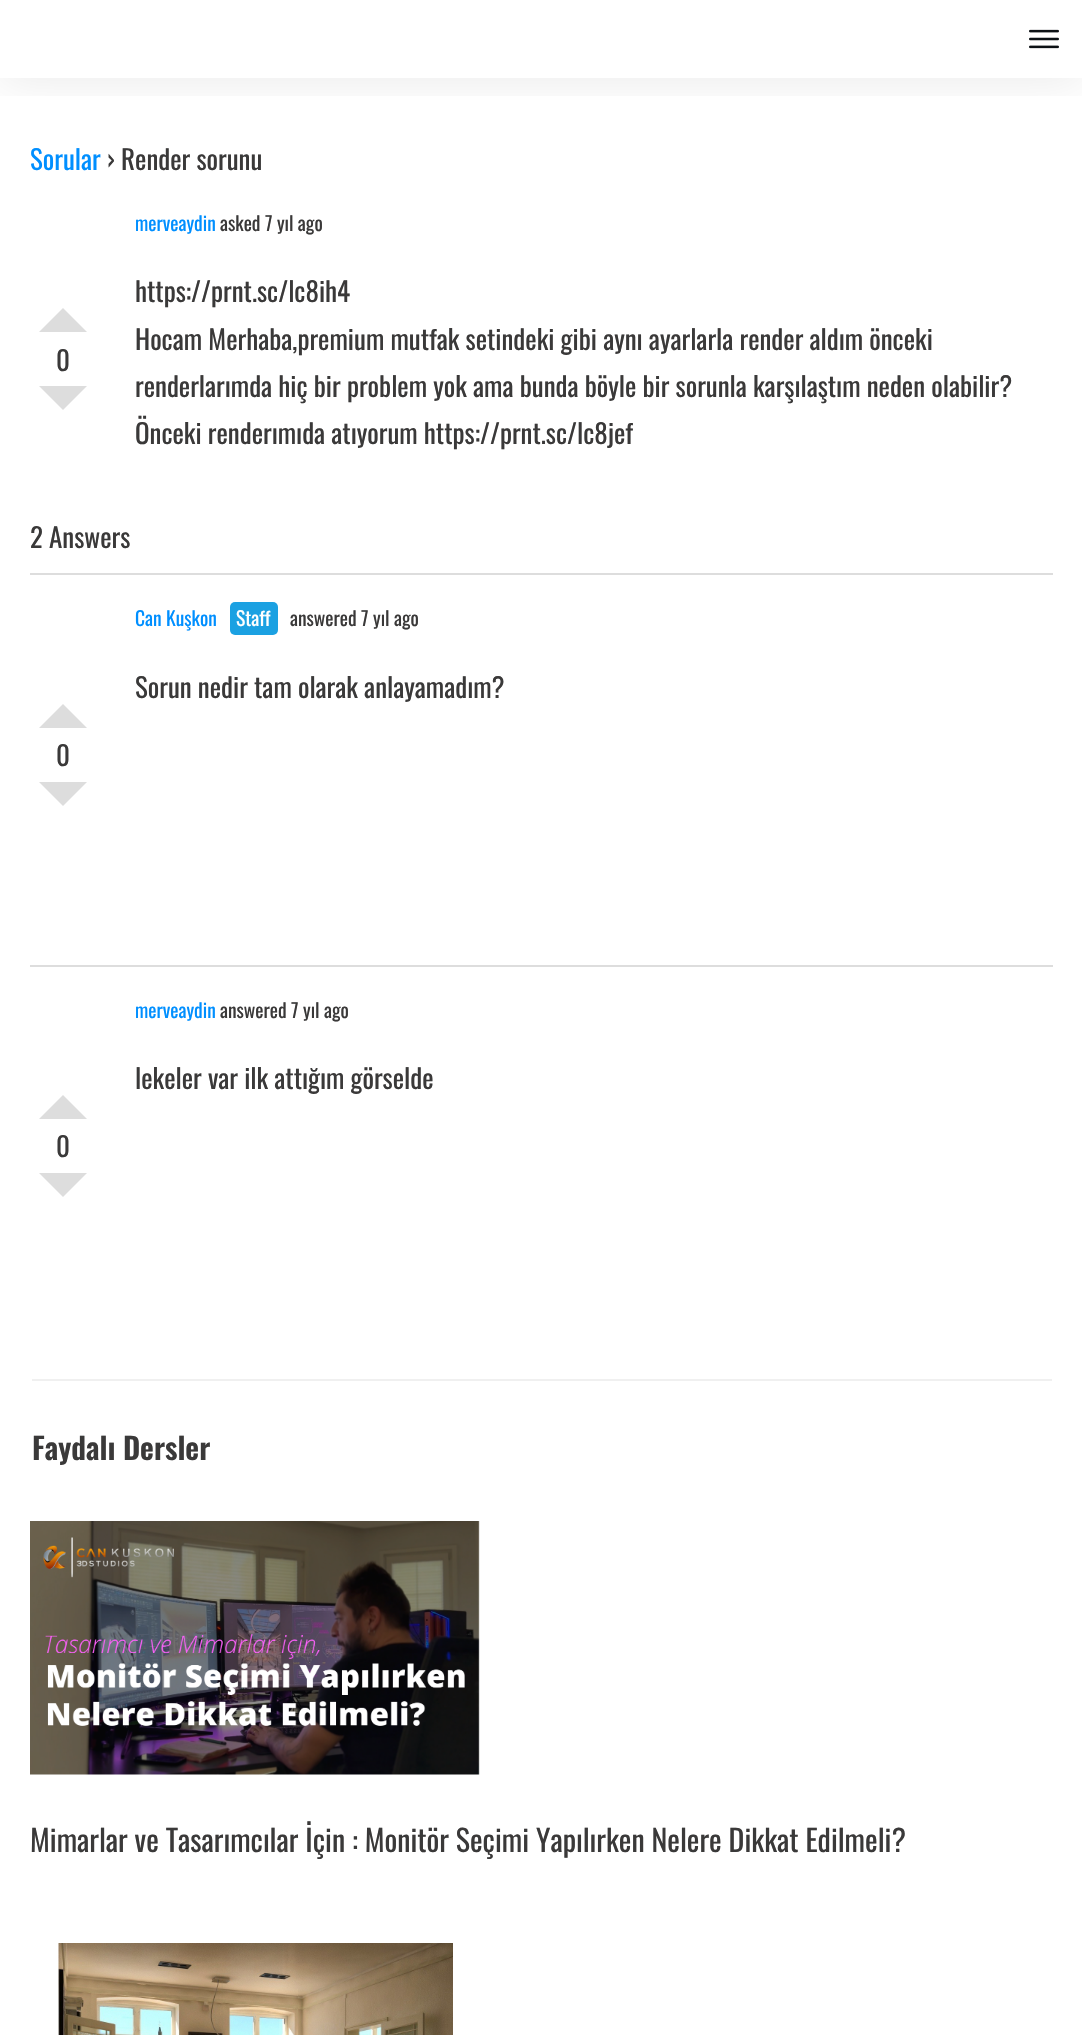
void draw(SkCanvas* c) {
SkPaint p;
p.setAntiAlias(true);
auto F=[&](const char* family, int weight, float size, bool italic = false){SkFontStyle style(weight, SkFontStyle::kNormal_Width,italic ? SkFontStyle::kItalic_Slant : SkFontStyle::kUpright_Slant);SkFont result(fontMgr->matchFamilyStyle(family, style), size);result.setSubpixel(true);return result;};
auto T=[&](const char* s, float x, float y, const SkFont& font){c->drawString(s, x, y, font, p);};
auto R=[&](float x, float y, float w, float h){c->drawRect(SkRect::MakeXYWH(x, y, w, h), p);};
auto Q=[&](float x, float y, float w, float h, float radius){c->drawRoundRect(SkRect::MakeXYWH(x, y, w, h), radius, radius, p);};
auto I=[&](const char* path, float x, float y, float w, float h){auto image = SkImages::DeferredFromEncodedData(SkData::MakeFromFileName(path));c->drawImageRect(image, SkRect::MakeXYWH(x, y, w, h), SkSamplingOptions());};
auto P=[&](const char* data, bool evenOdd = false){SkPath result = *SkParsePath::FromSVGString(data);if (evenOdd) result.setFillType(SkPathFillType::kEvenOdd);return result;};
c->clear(0xffffffff);
c->save();
c->clipRect(SkRect::MakeXYWH(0,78,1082,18));
p.setColor(0x14000000);
p.setMaskFilter(SkMaskFilter::MakeBlur(kNormal_SkBlurStyle, 22.5));
c->drawRect(SkRect::MakeXYWH(0,3,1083,78),p);
p.setMaskFilter(nullptr);
c->restore();
I("1.png",1029,29,30,20);
auto f1 = F("Oswald",400,27);
p.setColor(0xff008fff);
T("Sorular",30,170,f1);
p.setColor(0xff3a3939);
T("› Render sorunu",107,170,f1);
auto f2 = F("Oswald",400,19.5);
p.setColor(0xff008fff);
T("merveaydin",135,231,f2);
p.setColor(0xff3a3939);
T("asked 7 yıl ago",220,231,f2);
p.setColor(0xffdddddd);
c->drawPath(P("M87 332h-48l24-24z"),p);
p.setColor(0xff3a3939);
T("0",56,371,f1);
p.setColor(0xffdddddd);
c->drawPath(P("M39 386h48l-24 24z"),p);
p.setColor(0xff3a3939);
T("https://prnt.sc/lc8ih4",135,302,f1);
T("Hocam Merhaba,premium mutfak setindeki gibi aynı ayarlarla render aldım önceki",135,350,f1);
T("renderlarımda hiç bir problem yok ama bunda böyle bir sorunla karşılaştım neden olabilir?",135,397,f1);
T("Önceki renderımıda atıyorum https://prnt.sc/lc8jef",135,444,f1);
T("2 Answers",30,548,f1);
p.setColor(0xffdddddd);
R(30,573,1023,2);
p.setColor(0xff008fff);
T("Can Kuşkon",135,626,f2);
p.setColor(0xff1ba1e2);
Q(230,602,48,33,5);
p.setColor(0xffffffff);
T("Staff",236,626,f2);
p.setColor(0xff3a3939);
T("answered 7 yıl ago",290,626,f2);
T("Sorun nedir tam olarak anlayamadım?",135,698,f1);
p.setColor(0xffdddddd);
c->drawPath(P("M87 728h-48l24-24z"),p);
p.setColor(0xff3a3939);
T("0",56,766,f1);
p.setColor(0xffdddddd);
c->drawPath(P("M39 782h48l-24 24z"),p);
R(30,965,1023,2);
p.setColor(0xff008fff);
T("merveaydin",135,1018,f2);
p.setColor(0xff3a3939);
T("answered 7 yıl ago",220,1018,f2);
T("lekeler var ilk attığım görselde",135,1089,f1);
p.setColor(0xffdddddd);
c->drawPath(P("M87 1119h-48l24-24z"),p);
p.setColor(0xff3a3939);
T("0",56,1157,f1);
p.setColor(0xffdddddd);
c->drawPath(P("M39 1173h48l-24 24z"),p);
p.setColor(0xfff0f0f0);
R(32,1379,1020,2);
auto f3 = F("Oswald",600,30);
p.setColor(0xff3a3939);
T("Faydalı Dersler",32,1460,f3);
I("2.png",30,1521,450,254);
auto f4 = F("Oswald",400,30);
T("Mimarlar ve Tasarımcılar İçin : Monitör Seçimi Yapılırken Nelere Dikkat Edilmeli?",30,1852,f4);
I("3.png",58,1943,395,92);
}
